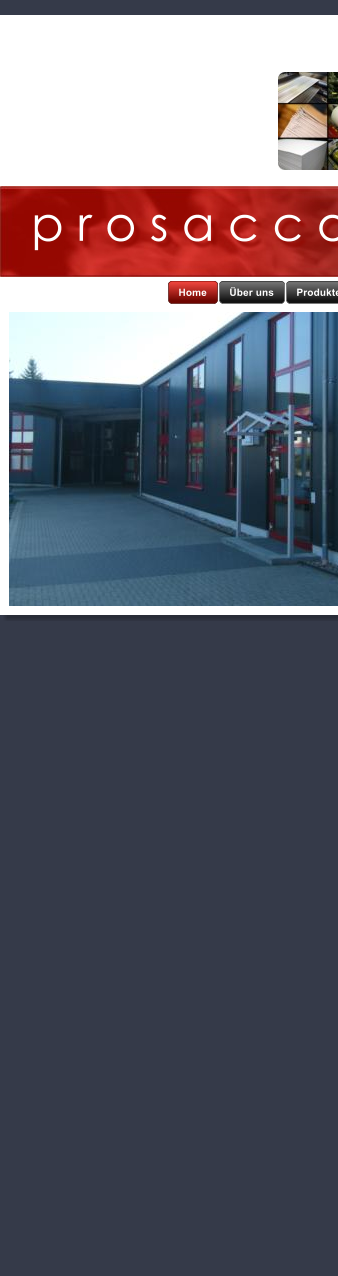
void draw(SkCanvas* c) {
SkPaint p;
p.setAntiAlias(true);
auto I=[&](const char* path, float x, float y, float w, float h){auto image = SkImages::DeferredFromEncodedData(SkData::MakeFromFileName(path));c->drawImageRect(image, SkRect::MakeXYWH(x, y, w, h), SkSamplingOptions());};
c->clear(0xff353a49);
I("1.png",0,15,338,606);
I("2.png",278,72,60,98);
I("3.png",0,186,338,91);
I("4.png",34,214,304,37);
I("5.png",168,281,50,23);
I("6.png",168,281,50,23);
I("7.png",219,281,66,23);
I("8.png",286,281,52,23);
I("9.png",9,312,329,294);
}
